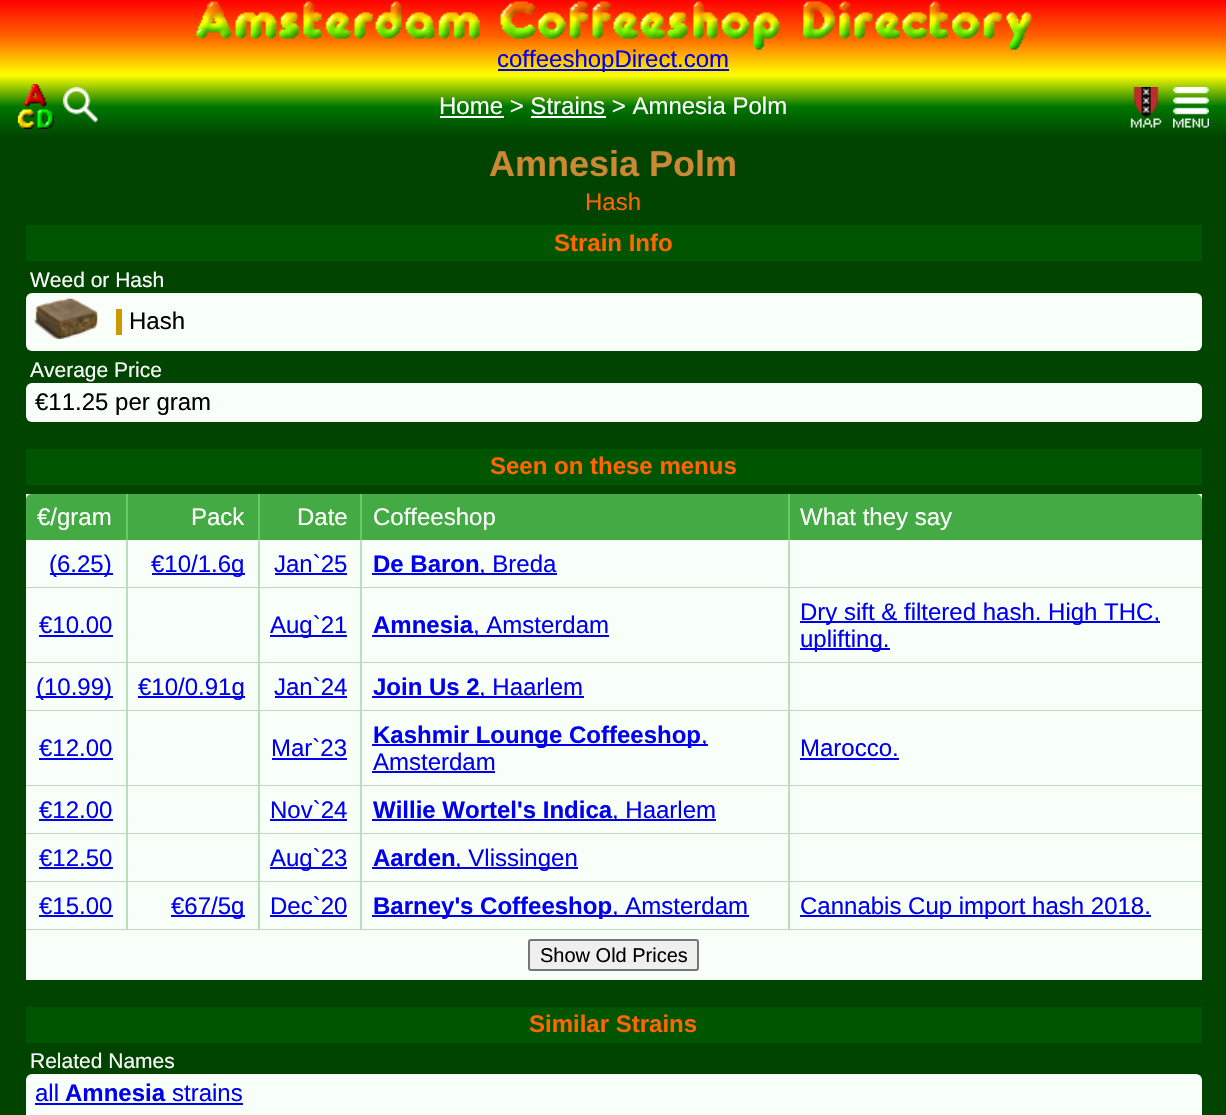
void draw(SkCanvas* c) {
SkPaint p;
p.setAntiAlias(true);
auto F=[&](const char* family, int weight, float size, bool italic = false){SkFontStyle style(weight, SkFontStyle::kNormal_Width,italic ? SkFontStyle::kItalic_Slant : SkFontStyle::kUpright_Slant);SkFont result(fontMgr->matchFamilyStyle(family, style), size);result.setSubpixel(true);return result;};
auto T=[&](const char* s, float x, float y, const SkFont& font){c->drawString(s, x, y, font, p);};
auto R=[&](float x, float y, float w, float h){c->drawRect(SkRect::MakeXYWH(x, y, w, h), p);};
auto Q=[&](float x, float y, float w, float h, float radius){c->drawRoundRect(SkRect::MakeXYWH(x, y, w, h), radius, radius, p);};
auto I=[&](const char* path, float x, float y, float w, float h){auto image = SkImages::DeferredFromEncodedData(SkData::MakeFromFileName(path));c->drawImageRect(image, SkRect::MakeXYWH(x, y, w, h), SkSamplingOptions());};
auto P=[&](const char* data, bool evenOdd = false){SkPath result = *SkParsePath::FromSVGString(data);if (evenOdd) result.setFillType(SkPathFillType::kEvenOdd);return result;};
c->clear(0xff004400);
{
const SkColor colors[] = {0xffff0000,0xffff6600,0xffffff00};
const float stops[] = {0,.5,1};
const SkPoint ends[] = {{614,0}, {614,75}};
p.setShader(SkGradientShader::MakeLinear(ends, colors, stops, 3, SkTileMode::kClamp));
p.setAlpha(255);
}
R(0,0,1226,75);
I("1.png",196,1,836,49);
p.setShader(nullptr);
p.setColor(0xff0000ee);
R(498,69,231,2);
auto f1 = F("Liberation Sans",400,24);
T("coffeeshopDirect.com",497,67,f1);
{
const SkColor colors[] = {0xffffff00,0xff007700,0xff004400};
const float stops[] = {0,.5,1};
const SkPoint ends[] = {{614,75}, {614,138}};
p.setShader(SkGradientShader::MakeLinear(ends, colors, stops, 3, SkTileMode::kClamp));
p.setAlpha(255);
}
R(0,75,1226,61);
I("2.png",18,84,36,45);
I("3.png",63,87,35,37);
p.setShader(nullptr);
p.setColor(0xffffffff);
T("Home > Strains > Amnesia Polm",439,114,f1);
R(440,116,64,2);
R(531,116,75,2);
I("4.png",1130,87,32,41);
I("5.png",1173,87,36,41);
auto f2 = F("Liberation Sans",700,36);
p.setColor(0xffcc8833);
T("Amnesia Polm",489,176,f2);
p.setColor(0xffff6600);
T("Hash",585,210,f1);
p.setColor(0xff005500);
R(26,225,1176,36);
auto f3 = F("Liberation Sans",700,24);
p.setColor(0xffff6600);
T("Strain Info",554,251,f3);
auto f4 = F("Liberation Sans",400,21);
p.setColor(0xffffffff);
T("Weed or Hash",30,287,f4);
p.setColor(0xfff8fff8);
Q(26,293,1176,58,6);
I("6.png",34,298,64,41);
p.setColor(0xffcc9900);
R(116,309,6,26);
p.setColor(0xff000000);
T("Hash",129,329,f1);
p.setColor(0xffffffff);
T("Average Price",30,377,f4);
p.setColor(0xfff8fff8);
Q(26,383,1176,39,6);
p.setColor(0xff000000);
T("€11.25 per gram",35,410,f1);
p.setColor(0xff005500);
R(26,1007,1176,36);
p.setColor(0xffff6600);
T("Similar Strains",529,1032,f3);
p.setColor(0xffffffff);
T("Related Names",30,1068,f4);
p.setColor(0xfff8fff8);
Q(26,1074,1176,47,6);
p.setColor(0xff0000ee);
T("all",35,1101,f1);
R(35,1103,208,2);
T("Amnesia",65,1101,f3);
T("strains",172,1101,f1);
p.setColor(0xff005500);
R(26,449,1176,36);
p.setColor(0xffff6600);
T("Seen on these menus",490,474,f3);
p.setColor(0xfff8fff8);
R(26,540,1176,47);
R(26,494,1176,6);
p.setColor(0xff44aa44);
c->drawPath(P("M32 494h94v46h-100v-40c0-3.5 2.5-6 6-6z"),p);
p.setColor(0xffffffff);
T("€/gram",37,525,f1);
p.setColor(0xff44aa44);
R(128,494,130,46);
p.setColor(0xff66cc66);
R(126,494,2,46);
p.setColor(0xffffffff);
T("Pack",191,525,f1);
p.setColor(0xff44aa44);
R(260,494,100,46);
p.setColor(0xff66cc66);
R(258,494,2,46);
p.setColor(0xffffffff);
T("Date",297,525,f1);
p.setColor(0xff44aa44);
R(362,494,426,46);
p.setColor(0xff66cc66);
R(360,494,2,46);
p.setColor(0xffffffff);
T("Coffeeshop",373,525,f1);
p.setColor(0xff44aa44);
c->drawPath(P("M788 494h408c3.5 0 6 2.5 6 6v40h-414z"),p);
p.setColor(0xff66cc66);
R(788,494,2,46);
p.setColor(0xffffffff);
T("What they say",800,525,f1);
p.setColor(0xffbbddbb);
R(26,587,1176,1);
p.setColor(0xff0000ee);
R(50,573,63,2);
T("(6.25)",49,572,f1);
p.setColor(0xffbbddbb);
R(126,540,2,48);
p.setColor(0xff0000ee);
R(152,573,93,2);
T("€10/1.6g",151,572,f1);
p.setColor(0xffbbddbb);
R(258,540,2,48);
p.setColor(0xff0000ee);
T("Jan`25",274,572,f1);
R(275,573,72,2);
p.setColor(0xffbbddbb);
R(360,540,2,48);
p.setColor(0xff0000ee);
T("De Baron",373,572,f3);
R(372,573,185,2);
T(", Breda",479,572,f1);
p.setColor(0xffbbddbb);
R(788,540,2,48);
p.setColor(0xfff8fff8);
R(26,588,1176,74);
p.setColor(0xffbbddbb);
R(26,662,1176,1);
p.setColor(0xff0000ee);
T("€10.00",39,633,f1);
R(39,635,74,2);
p.setColor(0xffbbddbb);
R(126,588,2,75);
R(258,588,2,75);
p.setColor(0xff0000ee);
R(270,635,77,2);
T("Aug`21",270,633,f1);
p.setColor(0xffbbddbb);
R(360,588,2,75);
p.setColor(0xff0000ee);
T("Amnesia",373,633,f3);
R(372,635,237,2);
T(", Amsterdam",473,633,f1);
p.setColor(0xffbbddbb);
R(788,588,2,75);
p.setColor(0xff0000ee);
R(800,621,360,2);
T("Dry sift & filtered hash. High THC,",800,620,f1);
R(800,648,90,2);
T("uplifting.",800,647,f1);
p.setColor(0xfff8fff8);
R(26,663,1176,47);
p.setColor(0xffbbddbb);
R(26,710,1176,1);
p.setColor(0xff0000ee);
R(36,696,77,2);
T("(10.99)",36,695,f1);
p.setColor(0xffbbddbb);
R(126,663,2,48);
p.setColor(0xff0000ee);
R(138,696,107,2);
T("€10/0.91g",138,695,f1);
p.setColor(0xffbbddbb);
R(258,663,2,48);
p.setColor(0xff0000ee);
T("Jan`24",274,695,f1);
R(275,696,72,2);
p.setColor(0xffbbddbb);
R(360,663,2,48);
p.setColor(0xff0000ee);
T("Join Us 2",373,695,f3);
R(372,696,212,2);
T(", Haarlem",479,695,f1);
p.setColor(0xffbbddbb);
R(788,663,2,48);
p.setColor(0xfff8fff8);
R(26,711,1176,74);
p.setColor(0xffbbddbb);
R(26,785,1176,1);
p.setColor(0xff0000ee);
T("€12.00",39,756,f1);
R(39,758,74,2);
p.setColor(0xffbbddbb);
R(126,711,2,75);
R(258,711,2,75);
p.setColor(0xff0000ee);
T("Mar`23",271,756,f1);
R(272,758,75,2);
p.setColor(0xffbbddbb);
R(360,711,2,75);
p.setColor(0xff0000ee);
R(372,744,336,2);
T("Kashmir Lounge Coffeeshop",373,743,f3);
T(",",701,743,f1);
T("Amsterdam",373,770,f1);
R(372,771,123,2);
p.setColor(0xffbbddbb);
R(788,711,2,75);
p.setColor(0xff0000ee);
T("Marocco.",800,756,f1);
R(800,758,99,2);
p.setColor(0xfff8fff8);
R(26,786,1176,47);
p.setColor(0xffbbddbb);
R(26,833,1176,1);
p.setColor(0xff0000ee);
T("€12.00",39,818,f1);
R(39,819,74,2);
p.setColor(0xffbbddbb);
R(126,786,2,48);
R(258,786,2,48);
p.setColor(0xff0000ee);
T("Nov`24",270,818,f1);
R(270,819,77,2);
p.setColor(0xffbbddbb);
R(360,786,2,48);
p.setColor(0xff0000ee);
T("Willie Wortel's Indica",373,818,f3);
R(372,819,344,2);
T(", Haarlem",612,818,f1);
p.setColor(0xffbbddbb);
R(788,786,2,48);
p.setColor(0xfff8fff8);
R(26,834,1176,47);
p.setColor(0xffbbddbb);
R(26,881,1176,1);
p.setColor(0xff0000ee);
T("€12.50",39,866,f1);
R(39,867,74,2);
p.setColor(0xffbbddbb);
R(126,834,2,48);
R(258,834,2,48);
p.setColor(0xff0000ee);
R(270,867,77,2);
T("Aug`23",270,866,f1);
p.setColor(0xffbbddbb);
R(360,834,2,48);
p.setColor(0xff0000ee);
T("Aarden",373,866,f3);
R(372,867,206,2);
T(", Vlissingen",455,866,f1);
p.setColor(0xffbbddbb);
R(788,834,2,48);
p.setColor(0xfff8fff8);
R(26,882,1176,47);
p.setColor(0xffbbddbb);
R(26,929,1176,1);
p.setColor(0xff0000ee);
T("€15.00",39,914,f1);
R(39,915,74,2);
p.setColor(0xffbbddbb);
R(126,882,2,48);
p.setColor(0xff0000ee);
R(171,915,74,2);
T("€67/5g",171,914,f1);
p.setColor(0xffbbddbb);
R(258,882,2,48);
p.setColor(0xff0000ee);
T("Dec`20",270,914,f1);
R(270,915,77,2);
p.setColor(0xffbbddbb);
R(360,882,2,48);
p.setColor(0xff0000ee);
R(372,915,377,2);
T("Barney's Coffeeshop",373,914,f3);
T(", Amsterdam",612,914,f1);
p.setColor(0xffbbddbb);
R(788,882,2,48);
p.setColor(0xff0000ee);
R(800,915,351,2);
T("Cannabis Cup import hash 2018.",800,914,f1);
p.setColor(0xfff8fff8);
R(26,930,1176,50);
p.setColor(0xffefefef);
c->drawRoundRect(SkRect::MakeXYWH(529,940,169,30),2,2,p);
p.setStroke(true);
p.setStrokeWidth(2);
p.setColor(0xff767676);
c->drawRoundRect(SkRect::MakeXYWH(529,940,169,30),2,2,p);
auto f5 = F("Liberation Sans",400,20);
p.setStroke(false);
p.setColor(0xff000000);
T("Show Old Prices",540,962,f5);
}
